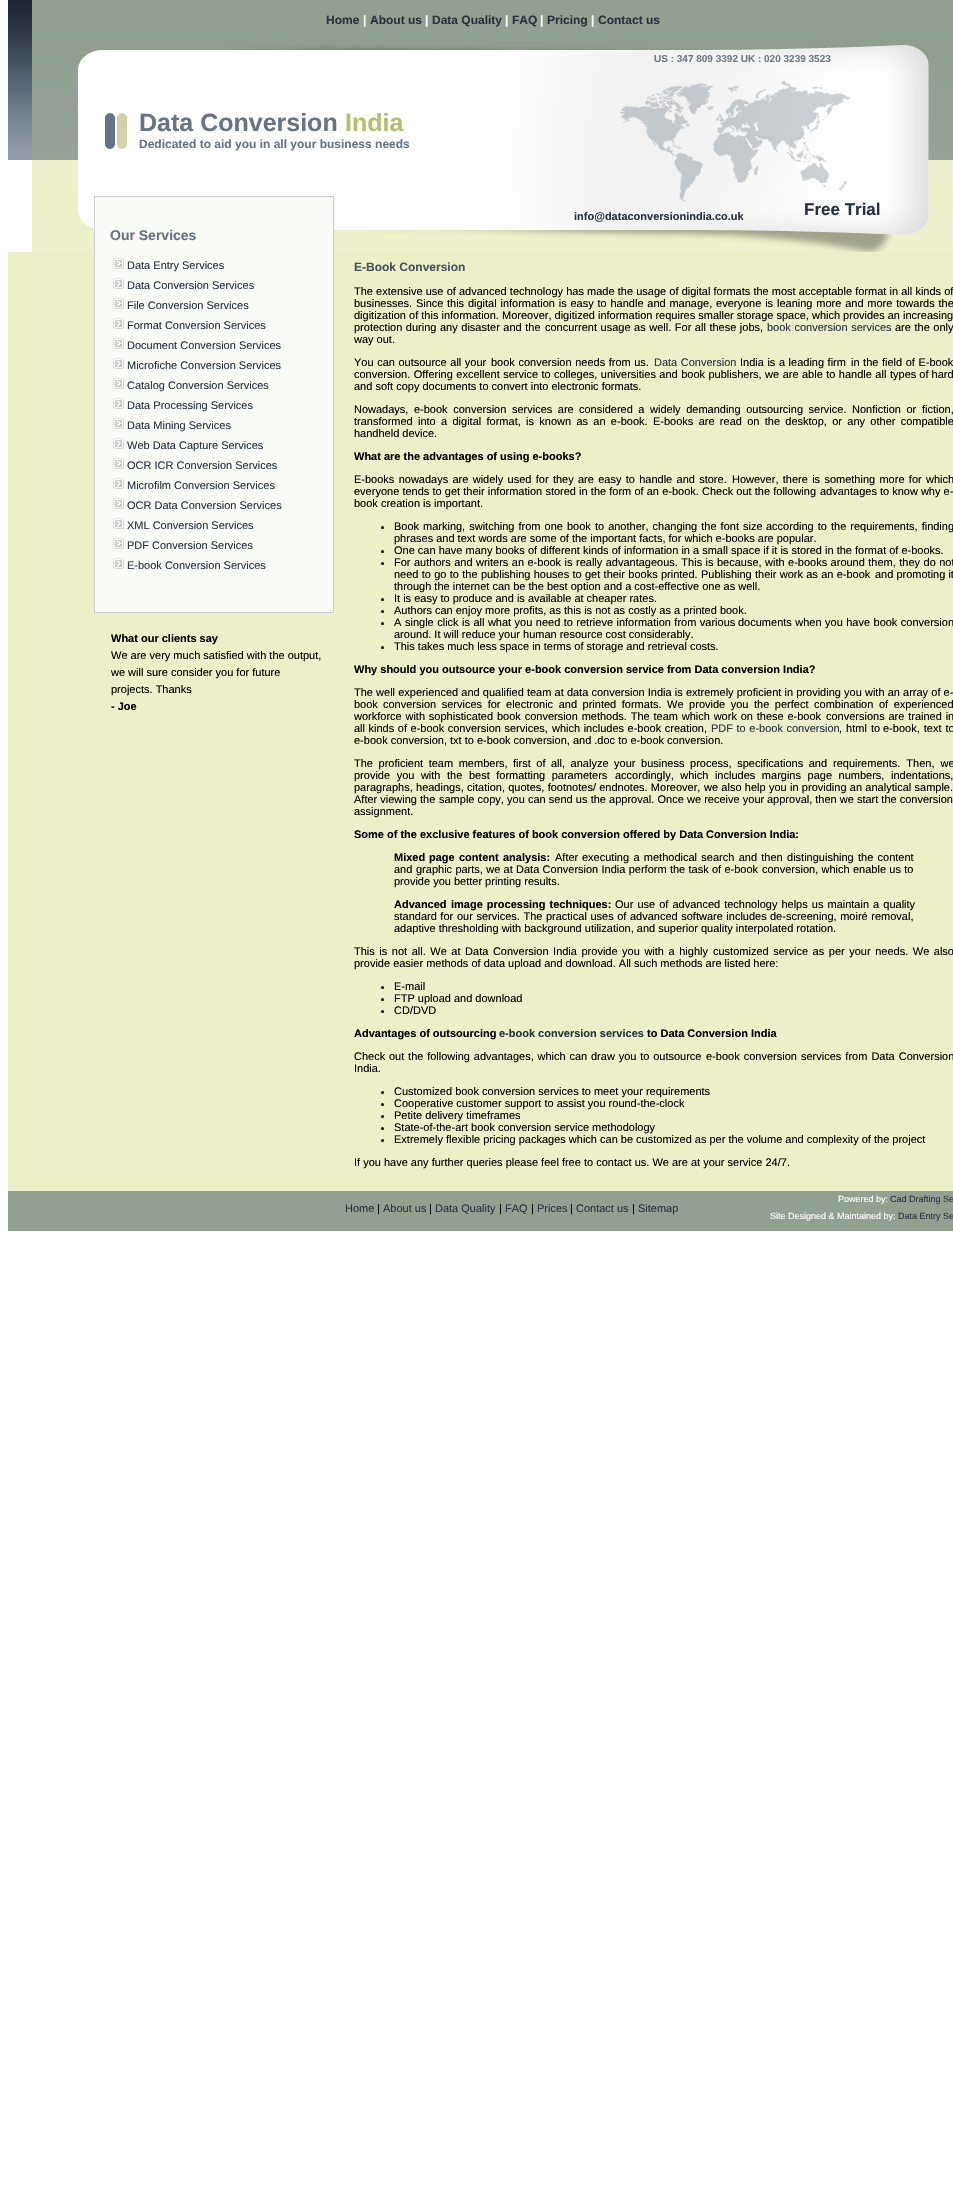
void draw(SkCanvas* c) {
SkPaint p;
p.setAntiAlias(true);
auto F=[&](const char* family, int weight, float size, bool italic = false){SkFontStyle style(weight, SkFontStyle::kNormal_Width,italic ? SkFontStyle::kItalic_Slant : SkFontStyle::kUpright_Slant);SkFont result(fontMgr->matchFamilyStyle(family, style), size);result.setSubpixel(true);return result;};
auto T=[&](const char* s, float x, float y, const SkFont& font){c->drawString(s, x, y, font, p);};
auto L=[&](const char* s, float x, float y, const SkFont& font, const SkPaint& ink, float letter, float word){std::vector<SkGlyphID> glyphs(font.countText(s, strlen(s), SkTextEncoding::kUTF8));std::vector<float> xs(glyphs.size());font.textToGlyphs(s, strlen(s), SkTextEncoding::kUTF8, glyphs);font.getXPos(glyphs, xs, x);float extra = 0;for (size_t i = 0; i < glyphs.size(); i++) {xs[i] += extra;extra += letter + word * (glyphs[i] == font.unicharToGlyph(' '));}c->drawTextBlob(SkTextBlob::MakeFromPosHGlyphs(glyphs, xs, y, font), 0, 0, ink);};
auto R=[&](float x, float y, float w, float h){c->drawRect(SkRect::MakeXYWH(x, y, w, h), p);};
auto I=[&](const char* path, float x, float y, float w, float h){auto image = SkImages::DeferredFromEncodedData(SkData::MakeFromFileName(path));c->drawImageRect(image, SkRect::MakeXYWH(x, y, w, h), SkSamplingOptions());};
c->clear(0xffffffff);
I("1.png",8,0,24,160);
p.setColor(0xff90a18f);
R(32,0,921,40);
auto f1 = F("Liberation Sans",700,12);
p.setColor(0xff263240);
T("Home",326,24,f1);
p.setColor(0xffffffff);
T("|",363,24,f1);
p.setColor(0xff263240);
T("About us",370,24,f1);
p.setColor(0xffffffff);
T("|",425,24,f1);
p.setColor(0xff263240);
T("Data Quality",432,24,f1);
p.setColor(0xffffffff);
T("|",505,24,f1);
p.setColor(0xff263240);
T("FAQ",512,24,f1);
p.setColor(0xffffffff);
T("|",540,24,f1);
p.setColor(0xff263240);
T("Pricing",547,24,f1);
p.setColor(0xffffffff);
T("|",591,24,f1);
p.setColor(0xff263240);
T("Contact us",598,24,f1);
I("2.png",32,40,921,120);
auto f2 = F("Liberation Sans",700,10);
p.setColor(0xff6d7983);
T("US : 347 809 3392 UK : 020 3239 3523",654,62,f2);
auto f3 = F("Liberation Sans",700,25);
p.setColor(0xff667383);
T("Data Conversion",139,131,f3);
p.setColor(0xffb7bd6f);
T("India",345,131,f3);
p.setColor(0xff667383);
T("Dedicated to aid you in all your business needs",139,148,f1);
I("3.png",32,160,921,92);
auto f4 = F("Liberation Sans",700,17);
p.setColor(0xff263240);
T("Free Trial",804,215,f4);
auto f5 = F("Liberation Sans",700,11);
T("info@dataconversionindia.co.uk",574,220,f5);
p.setColor(0xfff8fbf6);
R(95,197,238,55);
p.setColor(0xffc7ccd0);
R(94,196,240,1);
R(333,196,1,57);
p.setColor(0xffc8cdd1);
R(94,196,1,57);
auto f6 = F("Liberation Sans",700,14);
p.setColor(0xff667383);
T("Our Services",110,240,f6);
p.setColor(0xffedefc8);
R(8,252,945,939);
p.setColor(0xfff8fbf6);
R(95,252,238,360);
p.setColor(0xffc7ccd0);
R(333,252,1,361);
R(94,612,240,1);
p.setColor(0xffc8cdd1);
R(94,252,1,361);
I("4.png",113,258,11,11);
auto f7 = F("Liberation Sans",400,11);
p.setColor(0xff263240);
T("Data Entry Services",127,269,f7);
I("4.png",113,278,11,11);
T("Data Conversion Services",127,289,f7);
I("4.png",113,298,11,11);
T("File Conversion Services",127,309,f7);
I("4.png",113,318,11,11);
T("Format Conversion Services",127,329,f7);
I("4.png",113,338,11,11);
T("Document Conversion Services",127,349,f7);
I("4.png",113,358,11,11);
T("Microfiche Conversion Services",127,369,f7);
I("4.png",113,378,11,11);
T("Catalog Conversion Services",127,389,f7);
I("4.png",113,398,11,11);
T("Data Processing Services",127,409,f7);
I("4.png",113,418,11,11);
T("Data Mining Services",127,429,f7);
I("4.png",113,438,11,11);
T("Web Data Capture Services",127,449,f7);
I("4.png",113,458,11,11);
T("OCR ICR Conversion Services",127,469,f7);
I("4.png",113,478,11,11);
T("Microfilm Conversion Services",127,489,f7);
I("4.png",113,498,11,11);
T("OCR Data Conversion Services",127,509,f7);
I("4.png",113,518,11,11);
T("XML Conversion Services",127,529,f7);
I("4.png",113,538,11,11);
T("PDF Conversion Services",127,549,f7);
I("4.png",113,558,11,11);
T("E-book Conversion Services",127,569,f7);
p.setColor(0xff000000);
T("What our clients say",111,642,f5);
T("We are very much satisfied with the output,",111,659,f7);
T("we will sure consider you for future",111,676,f7);
T("projects. Thanks",111,693,f7);
T("- Joe",111,710,f5);
p.setColor(0xff47515c);
T("E-Book Conversion",354,271,f1);
p.setColor(0xff000000);
L("The extensive use of advanced technology has made the usage of digital formats the most acceptable format in all kinds of",354,295,f7,p,0,.1);
L("businesses. Since",354,307,f7,p,0,.75);
L("this digital information is easy to handle and manage, everyone is",447,307,f7,p,0,.75);
L("leaning more and more towards the",777,307,f7,p,0,.75);
T("digitization of this information. Moreover, digitized information requires smaller storage space, which provides an increasing",354,319,f7);
L("protection during any disaster and the",354,331,f7,p,0,.5);
L("concurrent usage as well. For all these jobs,",545,331,f7,p,0,.5);
p.setColor(0xff263240);
L("book conversion services",767,331,f7,p,0,.5);
p.setColor(0xff000000);
L("are the only",895,331,f7,p,0,.5);
T("way out.",354,343,f7);
L("You can outsource all your",354,366,f7,p,0,.5);
L("book conversion needs from us.",491,366,f7,p,0,.5);
p.setColor(0xff263240);
L("Data Conversion",654,366,f7,p,0,.5);
p.setColor(0xff000000);
L("India is a leading firm",740,366,f7,p,0,.5);
L("in the field of E-book",851,366,f7,p,0,.5);
L("conversion. Offering excellent service to",354,378,f7,p,0,.4);
L("colleges, universities and book publishers, we are able to handle all",554,378,f7,p,0,.4);
T("types of hard",890,378,f7);
T("and soft copy documents to convert into electronic formats.",354,390,f7);
L("Nowadays, e-book conversion services are",354,413,f7,p,0,2.5);
L("considered a widely demanding outsourcing service. Nonfiction or",579,413,f7,p,0,2.5);
T("fiction,",922,413,f7);
L("transformed into a digital format, is known as an e-book.",354,425,f7,p,0,2.25);
L("E-books are read on the desktop, or any other compatible",653,425,f7,p,0,2.25);
T("handheld device.",354,437,f7);
T("What are the advantages of using e-books?",354,460,f5);
L("E-books nowadays are widely used for they are easy to handle and store.",354,483,f7,p,0,1.25);
L("However, there is something more for which",732,483,f7,p,0,1.25);
L("everyone tends to get their information stored in the form of an e-book. Check out the following",354,495,f7,p,0,.1);
T("advantages to know why e-",820,495,f7);
T("book creation is important.",354,507,f7);
c->drawCircle(382.5,527.5,1.5,p);
T("Book",394,530,f7);
L("marking, switching from one book to another, changing the font size",423,530,f7,p,0,1);
L("according to the requirements, finding",766,530,f7,p,0,1);
T("phrases and text words are some of the important facts, for which e-books are popular.",394,542,f7);
c->drawCircle(382.5,551.5,1.5,p);
T("One can have many books of different kinds of information in a small space if it is stored in the format of e-books.",394,554,f7);
c->drawCircle(382.5,563.5,1.5,p);
T("For",394,566,f7);
L("authors and writers an e-book is really advantageous. This is because,",414,566,f7,p,0,.4);
L("with e-books around them, they do not",765,566,f7,p,0,.4);
L("need to go to the publishing houses to get their books printed. Publishing their work as an e-book",394,578,f7,p,0,.25);
T("and promoting it",875,578,f7);
T("through the internet can be the best option and a cost-effective one as well.",394,590,f7);
c->drawCircle(382.5,599.5,1.5,p);
T("It is easy to produce and is available at cheaper rates.",394,602,f7);
c->drawCircle(382.5,611.5,1.5,p);
T("Authors can enjoy more profits, as this is not as costly as a printed book.",394,614,f7);
c->drawCircle(382.5,623.5,1.5,p);
T("A",394,626,f7);
L("single click is all what you need to retrieve information from various",405,626,f7,p,0,.4);
L("documents when you have book conversion",738,626,f7,p,0,.4);
T("around. It will reduce your human resource cost considerably.",394,638,f7);
c->drawCircle(382.5,647.5,1.5,p);
T("This takes much less space in terms of storage and retrieval costs.",394,650,f7);
T("Why should you outsource your e-book conversion service from Data conversion India?",354,673,f5);
L("The well experienced and qualified team at data conversion India is extremely proficient in providing you with an array of e-",354,696,f7,p,0,.1);
T("book",354,708,f7);
L("conversion services for electronic and printed formats. We provide you",383,708,f7,p,0,2.5);
L("the perfect combination of experienced",754,708,f7,p,0,2.5);
L("workforce with sophisticated",354,720,f7,p,0,.75);
L("book conversion methods. The team which work on these e-book",497,720,f7,p,0,.75);
L("conversions are trained in",826,720,f7,p,0,.75);
L("all kinds of e-book conversion services,",354,732,f7,p,0,.5);
L("which includes e-book creation,",552,732,f7,p,0,.5);
p.setColor(0xff263240);
L("PDF to e-book conversion",711,732,f7,p,0,.5);
p.setColor(0xff000000);
L(", html to",839,732,f7,p,0,1);
L("e-book, text to",883,732,f7,p,0,1);
T("e-book conversion, txt to e-book conversion, and .doc to e-book conversion.",354,744,f7);
L("The proficient team members,",354,767,f7,p,0,2.5);
L("first of all, analyze your business process, specifications and",513,767,f7,p,0,2.5);
L("requirements. Then, we",833,767,f7,p,0,3);
L("provide you with the best formatting parameters",354,779,f7,p,0,3.5);
L("accordingly, which includes margins page numbers, indentations,",615,779,f7,p,0,3.5);
L("paragraphs, headings, citation, quotes, footnotes/ endnotes. Moreover,",354,791,f7,p,0,.25);
L("we also help you in providing an analytical sample.",704,791,f7,p,0,.25);
T("After viewing the",354,803,f7);
L("sample copy, you can send us the approval. Once we receive your",439,803,f7,p,0,.1);
T("approval, then we start the conversion",767,803,f7);
T("assignment.",354,815,f7);
T("Some of the exclusive features of book conversion offered by Data Conversion India:",354,838,f5);
T("Mixed",394,861,f5);
L("page content analysis:",429,861,f5,p,0,1.25);
T("After",555,861,f7);
L("executing a methodical search and then distinguishing the content",582,861,f7,p,0,1.25);
T("and",394,873,f7);
L("graphic parts, we at Data Conversion India perform the task of e-book",416,873,f7,p,0,.25);
L("conversion, which enable us to",762,873,f7,p,0,.25);
T("provide you better printing results.",394,885,f7);
T("Advanced",394,908,f5);
L("image processing techniques:",451,908,f5,p,0,1);
L("Our use of advanced technology helps us maintain a quality",615,908,f7,p,0,1);
L("standard for",394,920,f7,p,0,.5);
L("our services. The practical uses of advanced software includes",457,920,f7,p,0,.5);
L("de-screening, moiré removal,",770,920,f7,p,0,.5);
T("adaptive thresholding with background utilization, and superior quality interpolated rotation.",394,932,f7);
L("This is not all. We at Data Conversion India provide you with a highly",354,955,f7,p,0,1.5);
L("customized service as per your needs. We also",713,955,f7,p,0,1.5);
T("provide easier methods of data upload and download. All such methods are listed here:",354,967,f7);
c->drawCircle(382.5,987.5,1.5,p);
T("E-mail",394,990,f7);
c->drawCircle(382.5,999.5,1.5,p);
T("FTP upload and download",394,1002,f7);
c->drawCircle(382.5,1011.5,1.5,p);
T("CD/DVD",394,1014,f7);
T("Advantages of outsourcing",354,1037,f5);
p.setColor(0xff263240);
T("e-book conversion services",499,1037,f5);
p.setColor(0xff000000);
T("to Data Conversion India",647,1037,f5);
L("Check out the following advantages, which can draw you to outsource",354,1060,f7,p,0,.75);
L("e-book conversion services from Data Conversion",706,1060,f7,p,0,1);
T("India.",354,1072,f7);
c->drawCircle(382.5,1092.5,1.5,p);
T("Customized book conversion services to meet your requirements",394,1095,f7);
c->drawCircle(382.5,1104.5,1.5,p);
T("Cooperative customer support to assist you round-the-clock",394,1107,f7);
c->drawCircle(382.5,1116.5,1.5,p);
T("Petite delivery timeframes",394,1119,f7);
c->drawCircle(382.5,1128.5,1.5,p);
T("State-of-the-art book conversion service methodology",394,1131,f7);
c->drawCircle(382.5,1140.5,1.5,p);
T("Extremely flexible pricing packages which can be customized as per the volume and complexity of the project",394,1143,f7);
T("If you have any further queries please feel free to contact us. We are at your service 24/7.",354,1166,f7);
p.setColor(0xff90a18f);
R(8,1191,945,40);
p.setColor(0xff263240);
T("Home",345,1212,f7);
p.setColor(0xff000000);
T("|",377,1212,f7);
p.setColor(0xff263240);
T("About us",383,1212,f7);
p.setColor(0xff000000);
T("|",429,1212,f7);
p.setColor(0xff263240);
T("Data Quality",435,1212,f7);
p.setColor(0xff000000);
T("|",499,1212,f7);
p.setColor(0xff263240);
T("FAQ",505,1212,f7);
p.setColor(0xff000000);
T("|",531,1212,f7);
p.setColor(0xff263240);
T("Prices",537,1212,f7);
p.setColor(0xff000000);
T("|",570,1212,f7);
p.setColor(0xff263240);
T("Contact us",576,1212,f7);
p.setColor(0xff000000);
T("|",632,1212,f7);
p.setColor(0xff263240);
T("Sitemap",638,1212,f7);
auto f8 = F("Liberation Sans",400,9);
p.setColor(0xffffffff);
T("Powered by:",838,1202,f8);
p.setColor(0xff263240);
T("Cad Drafting Se",890,1202,f8);
p.setColor(0xffffffff);
T("Site Designed & Maintained by:",770,1219,f8);
p.setColor(0xff263240);
T("Data Entry Se",898,1219,f8);
}
